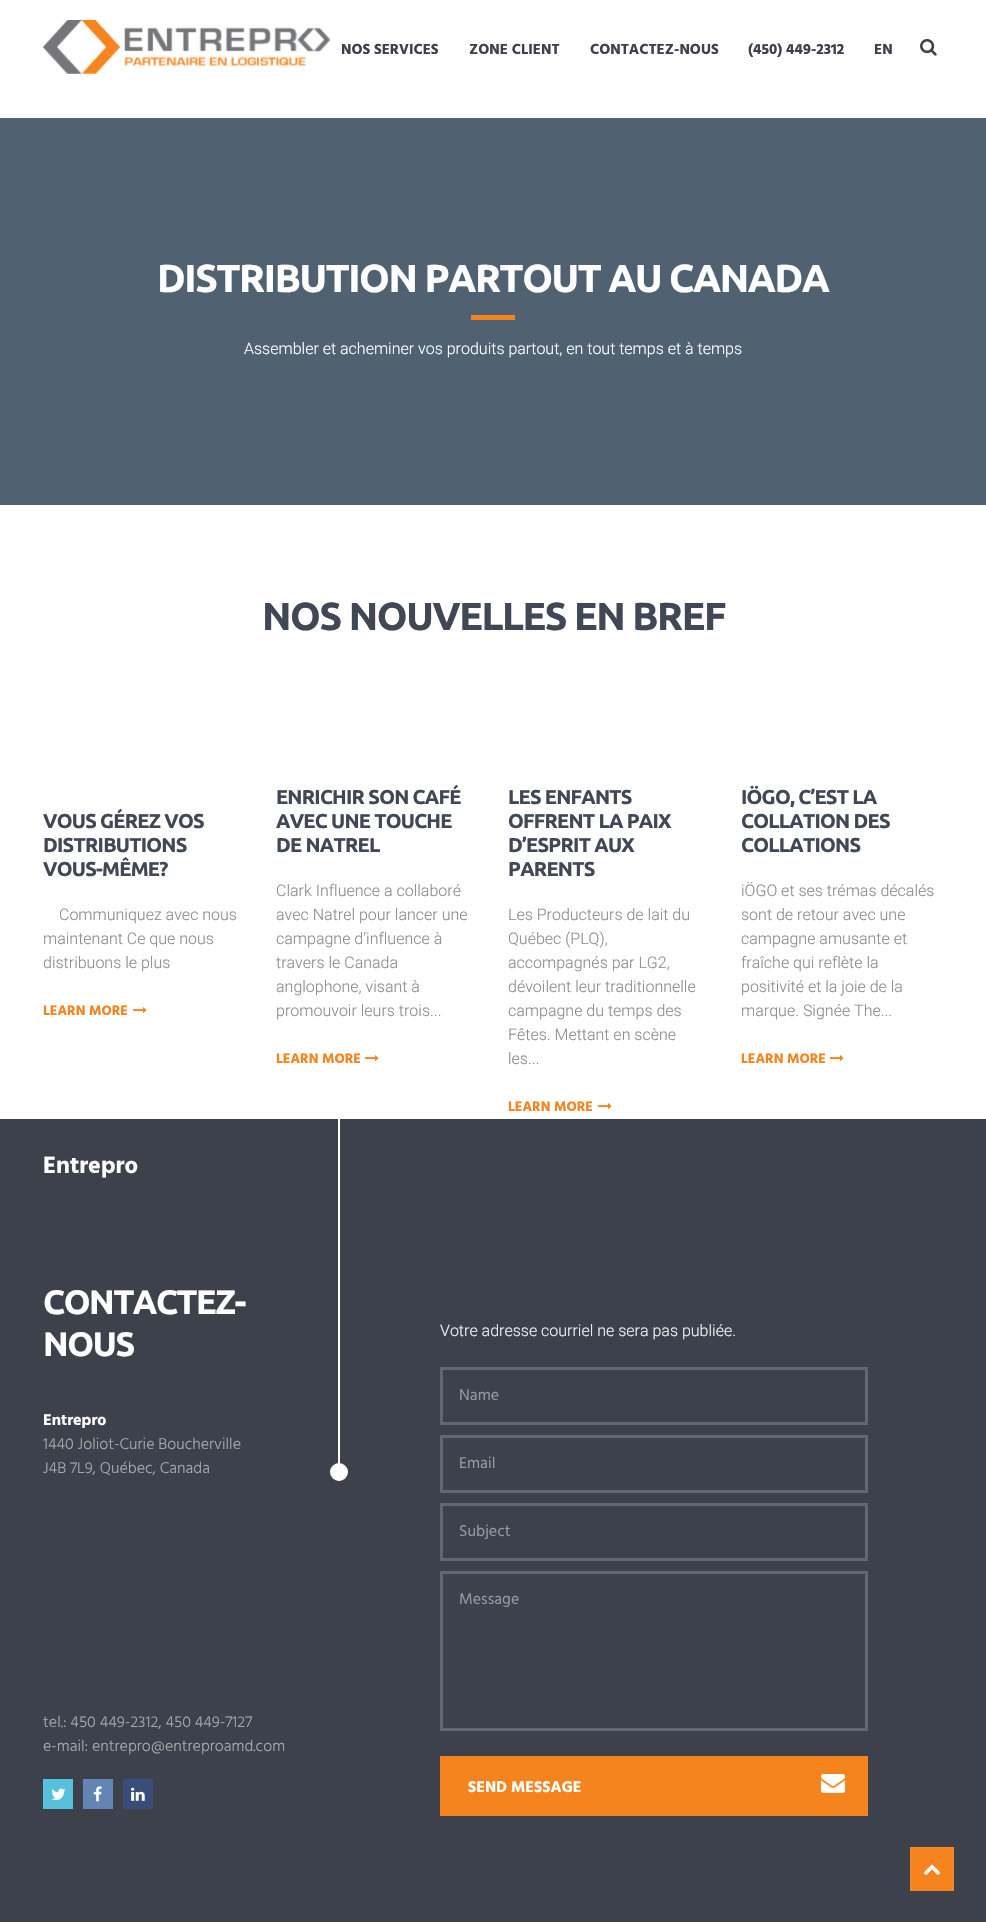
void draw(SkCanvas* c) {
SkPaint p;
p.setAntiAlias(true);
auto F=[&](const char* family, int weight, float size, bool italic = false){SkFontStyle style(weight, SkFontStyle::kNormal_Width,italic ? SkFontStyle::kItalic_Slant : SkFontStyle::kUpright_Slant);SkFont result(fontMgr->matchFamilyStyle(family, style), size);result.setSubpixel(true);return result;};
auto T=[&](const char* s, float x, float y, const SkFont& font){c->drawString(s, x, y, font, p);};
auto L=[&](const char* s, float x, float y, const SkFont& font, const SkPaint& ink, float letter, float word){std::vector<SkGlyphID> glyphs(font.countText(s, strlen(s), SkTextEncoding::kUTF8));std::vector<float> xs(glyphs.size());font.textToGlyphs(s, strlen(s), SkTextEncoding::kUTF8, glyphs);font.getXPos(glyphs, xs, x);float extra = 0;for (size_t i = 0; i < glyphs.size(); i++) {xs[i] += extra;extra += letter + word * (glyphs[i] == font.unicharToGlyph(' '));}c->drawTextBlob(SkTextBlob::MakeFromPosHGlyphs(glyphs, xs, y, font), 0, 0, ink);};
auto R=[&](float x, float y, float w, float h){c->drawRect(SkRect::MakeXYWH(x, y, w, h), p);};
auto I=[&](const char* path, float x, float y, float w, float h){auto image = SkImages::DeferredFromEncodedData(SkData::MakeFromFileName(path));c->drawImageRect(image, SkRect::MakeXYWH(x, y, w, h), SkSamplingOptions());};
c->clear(0xffffffff);
I("1.png",43,20,287,54);
auto f1 = F("Hind",700,15);
p.setColor(0xff3c414c);
T("NOS SERVICES",341,54,f1);
T("ZONE CLIENT",469,54,f1);
T("CONTACTEZ-NOUS",590,54,f1);
T("(450) 449-2312",748,54,f1);
T("EN",874,54,f1);
I("2.png",920,39,17,17);
p.setColor(0xff506272);
R(0,118,986,387);
auto f2 = F("Ubuntu",700,39);
p.setColor(0xffffffff);
L("DISTRIBUTION PARTOUT AU CANADA",157,292,f2,p,-1.4,0);
p.setColor(0xfff5841f);
R(471,315,44,5);
auto f3 = F("Roboto",300,16);
p.setColor(0xffffffff);
T("Assembler et acheminer vos produits partout, en tout temps et à temps",244,354,f3);
p.setColor(0xff404856);
L("NOS NOUVELLES EN BREF",262,630,f2,p,-1.4,0);
auto f4 = F("Ubuntu",700,20);
L("VOUS GÉREZ VOS",43,828,f4,p,-.75,0);
L("DISTRIBUTIONS",43,852,f4,p,-.75,0);
L("VOUS-MÊME?",43,876,f4,p,-.75,0);
p.setColor(0xff8b8b8b);
T("Communiquez avec nous",59,920,f3);
T("maintenant Ce que nous",43,944,f3);
T("distribuons le plus",43,968,f3);
auto f5 = F("Hind",700,14);
p.setColor(0xfff5841f);
T("LEARN MORE",43,1015,f5);
I("3.png",133,1007,14,6);
p.setColor(0xff404856);
L("ENRICHIR SON CAFÉ",276,804,f4,p,-.75,0);
L("AVEC UNE TOUCHE",276,828,f4,p,-.75,0);
L("DE NATREL",276,852,f4,p,-.75,0);
p.setColor(0xff8b8b8b);
T("Clark Influence a collaboré",276,896,f3);
T("avec Natrel pour lancer une",276,920,f3);
T("campagne d’influence à",276,944,f3);
T("travers le Canada",276,968,f3);
T("anglophone, visant à",276,992,f3);
T("promouvoir leurs trois...",276,1016,f3);
p.setColor(0xfff5841f);
T("LEARN MORE",276,1063,f5);
I("3.png",365,1055,14,6);
p.setColor(0xff404856);
L("LES ENFANTS",508,804,f4,p,-.75,0);
L("OFFRENT LA PAIX",508,828,f4,p,-.75,0);
L("D’ESPRIT AUX",508,852,f4,p,-.75,0);
L("PARENTS",508,876,f4,p,-.75,0);
p.setColor(0xff8b8b8b);
T("Les Producteurs de lait du",508,920,f3);
T("Québec (PLQ),",508,944,f3);
T("accompagnés par LG2,",508,968,f3);
T("dévoilent leur traditionnelle",508,992,f3);
T("campagne du temps des",508,1016,f3);
T("Fêtes. Mettant en scène",508,1040,f3);
T("les...",508,1064,f3);
p.setColor(0xfff5841f);
T("LEARN MORE",508,1111,f5);
I("3.png",598,1103,14,6);
p.setColor(0xff404856);
L("IÖGO, C’EST LA",741,804,f4,p,-.75,0);
L("COLLATION DES",741,828,f4,p,-.75,0);
L("COLLATIONS",741,852,f4,p,-.75,0);
p.setColor(0xff8b8b8b);
T("iÖGO et ses trémas décalés",741,896,f3);
T("sont de retour avec une",741,920,f3);
T("campagne amusante et",741,944,f3);
T("fraîche qui reflète la",741,968,f3);
T("positivité et la joie de la",741,992,f3);
T("marque. Signée The...",741,1016,f3);
p.setColor(0xfff5841f);
T("LEARN MORE",741,1063,f5);
I("3.png",830,1055,14,6);
p.setColor(0xff3c414c);
R(0,1119,986,803);
auto f6 = F("Hind",700,24);
p.setColor(0xffffffff);
T("Entrepro",43,1173,f6);
R(338,1119,2,362);
auto f7 = F("Ubuntu",700,34);
L("CONTACTEZ-",43,1314,f7,p,-1.4,0);
L("NOUS",43,1356,f7,p,-1.4,0);
auto f8 = F("Hind",700,16);
T("Entrepro",43,1425,f8);
auto f9 = F("Hind",300,16);
p.setColor(0xffa5a9aa);
T("1440 Joliot-Curie Boucherville",43,1449,f9);
T("J4B 7L9, Québec, Canada",43,1473,f9);
p.setColor(0xffffffff);
c->drawCircle(339,1472,9,p);
p.setColor(0xffa5a9aa);
T("tel.: 450 449-2312, 450 449-7127",43,1727,f9);
T("e-mail: entrepro@entreproamd.com",43,1751,f9);
p.setColor(0xff58c0da);
R(43,1779,30,30);
I("4.png",51,1788,15,13);
p.setColor(0xff6385b3);
R(83,1779,30,30);
I("5.png",93,1786,9,16);
p.setColor(0xff3a4d78);
R(123,1779,30,30);
I("6.png",131,1787,14,14);
p.setColor(0xfff0f5f7);
T("Votre adresse courriel ne sera pas publiée.",440,1336,f3);
p.setStroke(true);
p.setStrokeWidth(3);
p.setColor(0xff636770);
c->drawRect(SkRect::MakeXYWH(441.5,1368.5,425,55),p);
auto f10 = F("Hind",400,16);
p.setStroke(false);
p.setColor(0xff959a9e);
T("Name",459,1400,f10);
p.setStroke(true);
p.setColor(0xff636770);
c->drawRect(SkRect::MakeXYWH(441.5,1436.5,425,55),p);
p.setStroke(false);
p.setColor(0xff959a9e);
T("Email",459,1468,f10);
p.setStroke(true);
p.setColor(0xff636770);
c->drawRect(SkRect::MakeXYWH(441.5,1504.5,425,55),p);
p.setStroke(false);
p.setColor(0xff959a9e);
T("Subject",459,1536,f10);
p.setStroke(true);
p.setColor(0xff636770);
c->drawRect(SkRect::MakeXYWH(441.5,1572.5,425,157),p);
p.setStroke(false);
p.setColor(0xff959a9e);
T("Message",459,1604,f10);
p.setColor(0xfff5841f);
R(440,1756,428,60);
p.setColor(0xffffffff);
T("SEND MESSAGE",468,1792,f8);
I("7.png",821,1774,25,19);
p.setColor(0xfff5841f);
R(910,1847,44,44);
I("8.png",923,1864,18,11);
}
